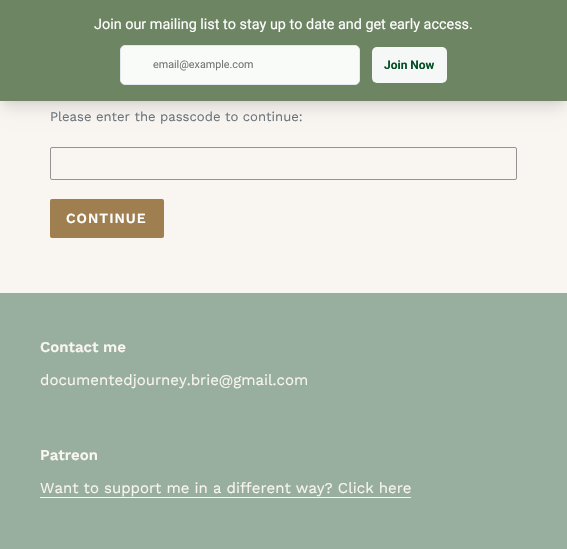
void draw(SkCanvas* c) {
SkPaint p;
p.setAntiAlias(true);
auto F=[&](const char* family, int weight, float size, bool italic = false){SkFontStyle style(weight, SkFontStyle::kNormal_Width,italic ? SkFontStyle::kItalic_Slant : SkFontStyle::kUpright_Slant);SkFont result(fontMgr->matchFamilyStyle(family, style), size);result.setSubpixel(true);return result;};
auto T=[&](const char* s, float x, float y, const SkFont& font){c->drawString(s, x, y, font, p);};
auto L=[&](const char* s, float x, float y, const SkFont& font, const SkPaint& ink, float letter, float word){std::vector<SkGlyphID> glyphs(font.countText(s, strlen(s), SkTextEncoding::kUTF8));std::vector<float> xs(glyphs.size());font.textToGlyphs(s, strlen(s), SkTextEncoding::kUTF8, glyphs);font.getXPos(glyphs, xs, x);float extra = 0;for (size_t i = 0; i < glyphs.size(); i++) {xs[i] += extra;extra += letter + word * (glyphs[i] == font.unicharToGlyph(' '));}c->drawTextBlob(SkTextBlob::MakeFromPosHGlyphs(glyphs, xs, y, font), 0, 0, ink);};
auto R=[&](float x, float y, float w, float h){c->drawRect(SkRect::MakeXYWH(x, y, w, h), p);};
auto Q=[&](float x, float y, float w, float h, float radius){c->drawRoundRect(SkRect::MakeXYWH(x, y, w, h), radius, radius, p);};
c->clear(0xfff9f5f1);
p.setColor(0x0d000000);
p.setMaskFilter(SkMaskFilter::MakeBlur(kNormal_SkBlurStyle, 3));
c->drawRect(SkRect::MakeXYWH(2,6,563,97),p);
p.setMaskFilter(nullptr);
p.setColor(0x1a000000);
p.setMaskFilter(SkMaskFilter::MakeBlur(kNormal_SkBlurStyle, 7.5));
c->drawRect(SkRect::MakeXYWH(3,13,561,95),p);
p.setMaskFilter(nullptr);
p.setColor(0xff6e8563);
R(0,0,567,101);
auto f1 = F("Roboto",400,14.4);
p.setColor(0xffffffff);
T("Join our mailing list to stay up to date and get early access.",94,29,f1);
p.setColor(0xfff9fbf8);
c->drawRoundRect(SkRect::MakeXYWH(120.5,45.5,239,39),4.5,4.5,p);
p.setStroke(true);
p.setStrokeWidth(1);
p.setColor(0xffe2e8f0);
c->drawRoundRect(SkRect::MakeXYWH(120.5,45.5,239,39),4.5,4.5,p);
auto f2 = F("Roboto",400,10.75);
p.setStroke(false);
p.setColor(0xff757575);
T("email@example.com",153,68,f2);
p.setColor(0xfff6f8f7);
Q(372,47,75,36,5);
auto f3 = F("Roboto",700,12);
p.setColor(0xff064f26);
T("Join Now",384,69,f3);
auto f4 = F("Work Sans",400,13.1);
p.setColor(0xff69727b);
T("Please enter the passcode to continue:",50,121,f4);
p.setStroke(true);
p.setColor(0xff949494);
c->drawRoundRect(SkRect::MakeXYWH(50.5,147.5,466,32),1.5,1.5,p);
p.setStroke(false);
p.setColor(0xff9f7f50);
Q(50,199,114,39,2);
auto f5 = F("Work Sans",600,14);
p.setColor(0xffffffff);
L("CONTINUE",66,223,f5,p,1,0);
p.setColor(0xff98ae9f);
R(0,293,567,256);
auto f6 = F("Work Sans",600,15);
p.setColor(0xfff9f5f1);
T("Contact me",40,352,f6);
auto f7 = F("Work Sans",400,15);
T("documentedjourney.brie@gmail.com",40,385,f7);
T("Patreon",40,460,f6);
T("Want to support me in a different way? Click here",40,493,f7);
R(40,497,371,1);
}
